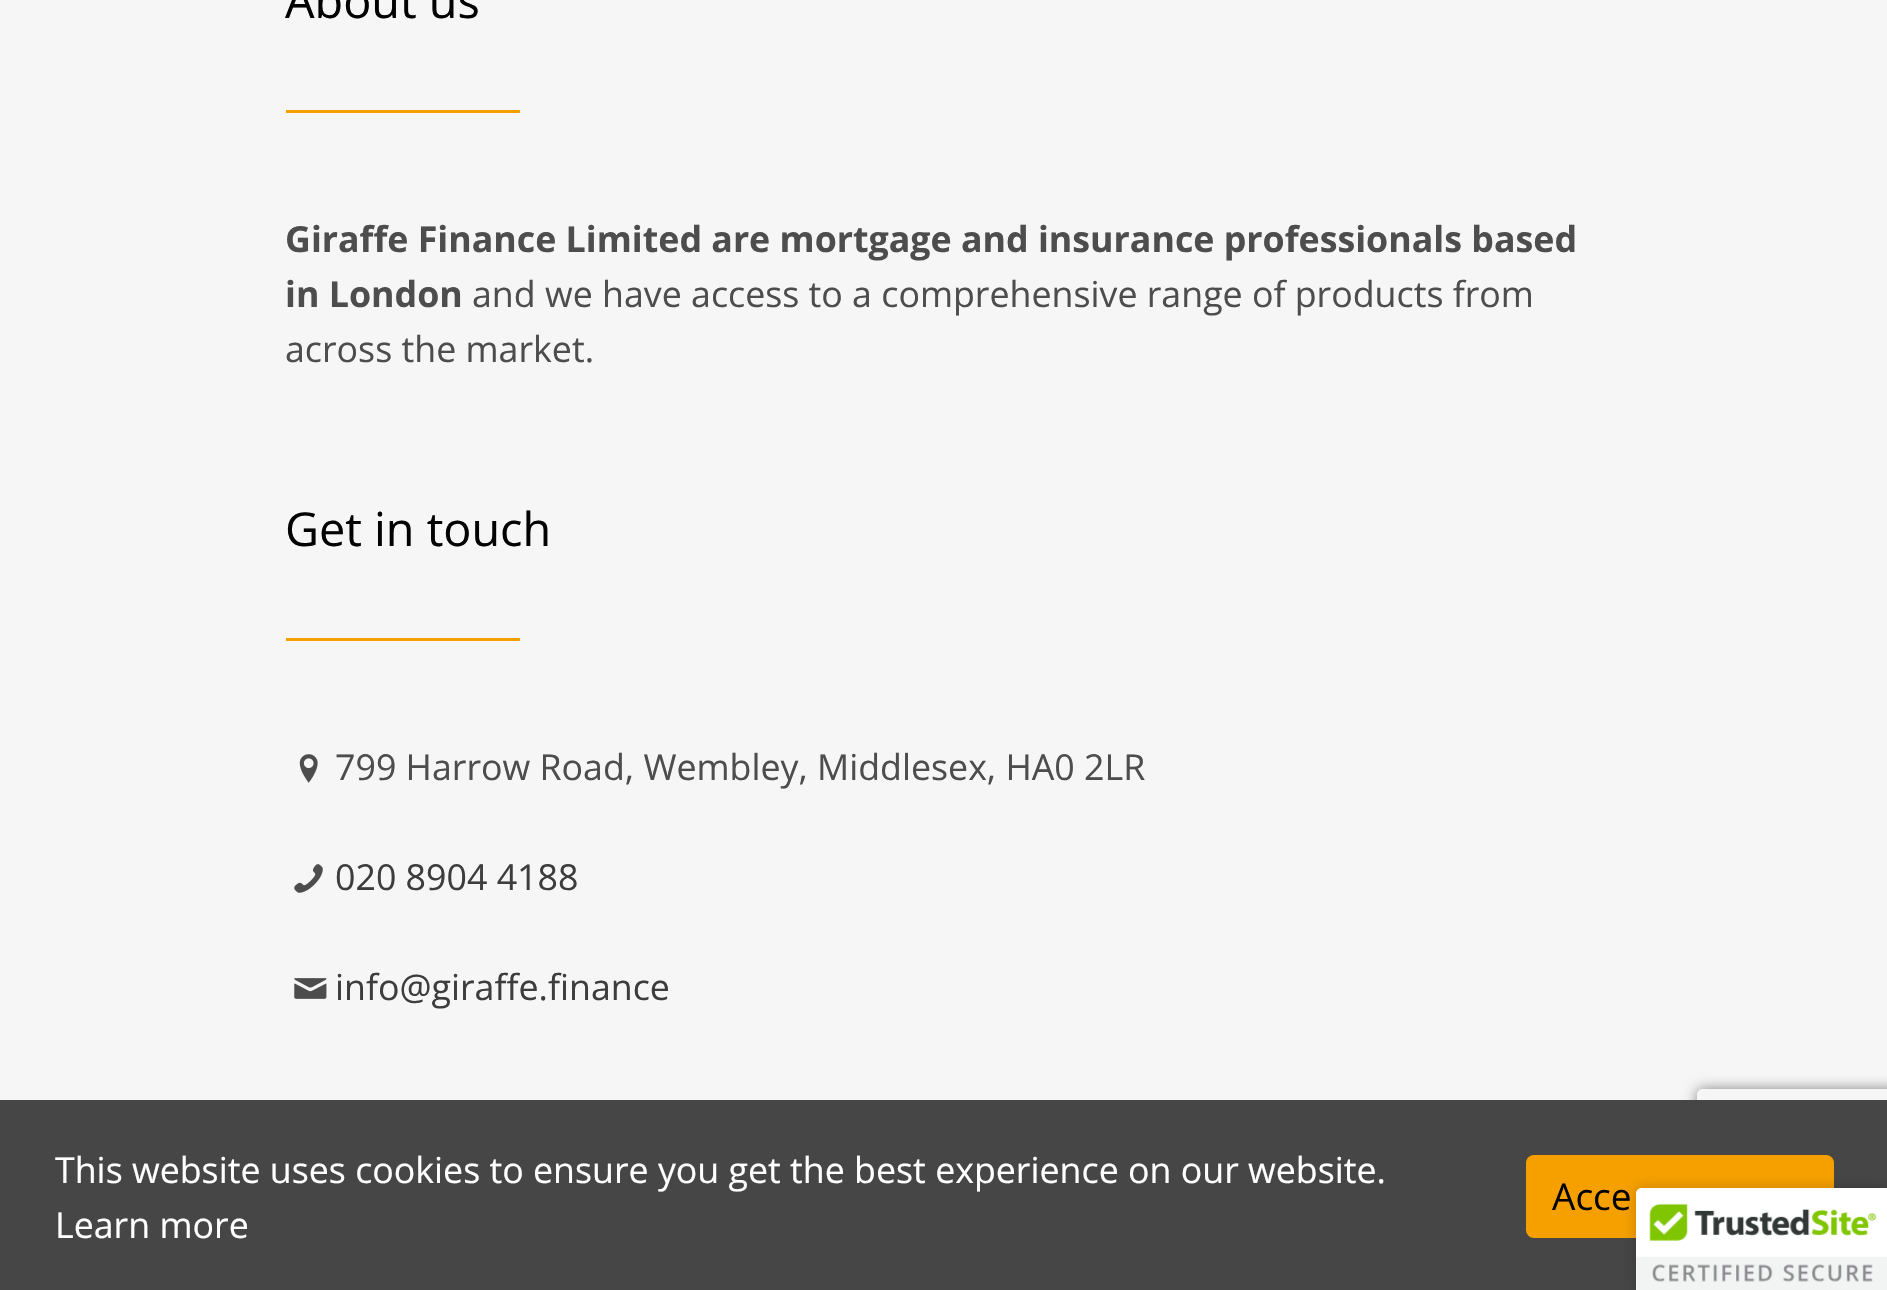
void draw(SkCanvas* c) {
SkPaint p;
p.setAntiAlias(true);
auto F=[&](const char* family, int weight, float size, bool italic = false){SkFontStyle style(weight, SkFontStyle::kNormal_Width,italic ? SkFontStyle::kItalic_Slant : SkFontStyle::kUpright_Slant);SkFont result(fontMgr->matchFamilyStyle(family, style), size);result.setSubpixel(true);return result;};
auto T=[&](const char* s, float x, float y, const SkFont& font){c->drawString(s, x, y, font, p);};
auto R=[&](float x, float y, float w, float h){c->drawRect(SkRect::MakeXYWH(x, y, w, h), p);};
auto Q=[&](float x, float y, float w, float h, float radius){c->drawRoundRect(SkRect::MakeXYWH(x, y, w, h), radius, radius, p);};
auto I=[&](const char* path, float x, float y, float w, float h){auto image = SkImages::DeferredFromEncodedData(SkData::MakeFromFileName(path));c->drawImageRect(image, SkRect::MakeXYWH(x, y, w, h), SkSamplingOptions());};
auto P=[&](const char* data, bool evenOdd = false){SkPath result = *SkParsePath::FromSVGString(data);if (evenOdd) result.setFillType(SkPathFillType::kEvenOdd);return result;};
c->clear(0xfff6f6f6);
auto f1 = F("Open Sans",400,46.75);
p.setColor(0xff020202);
T("About us",285,18,f1);
p.setColor(0xfff6a000);
R(286,110,234,3);
auto f2 = F("Open Sans",700,35.75);
p.setColor(0xff4d4d4d);
T("Giraffe Finance Limited are mortgage and insurance professionals based",285,252,f2);
T("in London",285,307,f2);
auto f3 = F("Open Sans",400,35.75);
T("and we have access to a comprehensive range of products from",472,307,f3);
T("across the market.",285,362,f3);
p.setColor(0xff020202);
T("Get in touch",285,546,f1);
p.setColor(0xfff6a000);
R(286,638,234,3);
I("1.png",299,754,19,29);
p.setColor(0xff4d4d4d);
T("799 Harrow Road, Wembley, Middlesex, HA0 2LR",335,780,f3);
I("2.png",294,864,29,29);
p.setColor(0xff3d3d3d);
T("020 8904 4188",335,890,f3);
I("3.png",294,978,33,21);
T("info@giraffe.finance",335,1000,f3);
c->save();
c->clipPath(P("M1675 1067h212v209h-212zm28 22h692c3.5 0 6 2.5 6 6v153c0 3.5-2.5 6-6 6h-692c-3.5 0-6-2.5-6-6v-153c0-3.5 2.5-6 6-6z",true),true);
p.setColor(0xff808080);
p.setMaskFilter(SkMaskFilter::MakeBlur(kNormal_SkBlurStyle, 7));
c->drawRoundRect(SkRect::MakeXYWH(1697,1089,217,165),6,6,p);
p.setMaskFilter(nullptr);
c->restore();
p.setColor(0xff464646);
R(0,1100,1887,190);
p.setColor(0xffffffff);
T("This website uses cookies to ensure you get the best experience on our website.",55,1183,f3);
T("Learn more",55,1238,f3);
p.setColor(0xfff6a000);
Q(1526,1155,308,83,8);
auto f4 = F("Open Sans",400,37);
p.setColor(0xff020202);
T("Acce",1552,1210,f4);
p.setColor(0x33000000);
p.setMaskFilter(SkMaskFilter::MakeBlur(kNormal_SkBlurStyle, 7));
c->drawRoundRect(SkRect::MakeXYWH(1636,1188,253,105),6,6,p);
p.setMaskFilter(nullptr);
p.setColor(0xffffffff);
c->drawPath(P("M1642 1188h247v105h-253v-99c0-3.5 2.5-6 6-6z"),p);
I("4.png",1636,1188,251,102);
}
